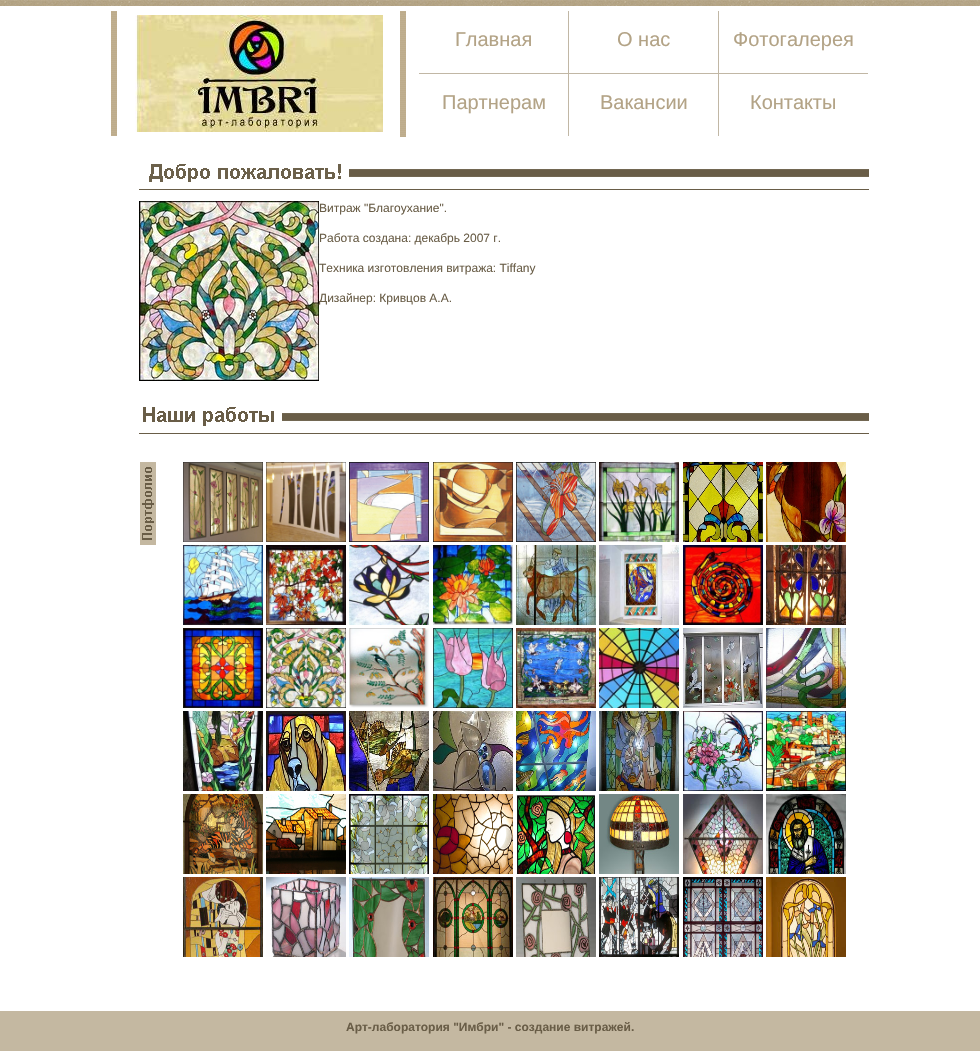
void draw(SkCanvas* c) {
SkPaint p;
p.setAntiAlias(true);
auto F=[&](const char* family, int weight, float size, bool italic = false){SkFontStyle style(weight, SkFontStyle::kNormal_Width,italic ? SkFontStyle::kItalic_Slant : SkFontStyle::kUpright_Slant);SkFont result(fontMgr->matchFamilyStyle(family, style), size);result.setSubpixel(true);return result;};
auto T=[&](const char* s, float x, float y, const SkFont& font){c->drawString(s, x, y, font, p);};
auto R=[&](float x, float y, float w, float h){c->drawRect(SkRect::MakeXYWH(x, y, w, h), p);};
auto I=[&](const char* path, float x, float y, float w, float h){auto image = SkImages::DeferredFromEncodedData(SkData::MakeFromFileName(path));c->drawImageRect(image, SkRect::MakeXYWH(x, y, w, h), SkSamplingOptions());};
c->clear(0xffc4b8a1);
I("1.png",0,0,980,6);
p.setColor(0xffffffff);
R(0,6,980,1005);
I("2.png",111,11,6,125);
I("3.png",135,15,248,117);
I("4.png",400,11,6,126);
p.setColor(0xffc1b7a5);
R(568,11,1,125);
R(419,73,150,1);
auto f1 = F("Liberation Sans",400,20);
p.setColor(0xffb3a386);
T("Главная",455,46,f1);
p.setColor(0xffc1b7a5);
R(718,11,1,125);
R(569,73,299,1);
p.setColor(0xffb3a386);
T("О нас",617,46,f1);
T("Фотогалерея",733,46,f1);
T("Партнерам",442,109,f1);
T("Вакансии",600,109,f1);
T("Контакты",750,109,f1);
I("5.png",139,169,730,21);
I("6.png",139,164,210,18);
I("7.png",139,201,180,180);
auto f2 = F("Liberation Sans",400,12);
p.setColor(0xff695d47);
T("Витраж \"Благоухание\".",319,212,f2);
T("Работа создана: декабрь 2007 г.",319,242,f2);
T("Техника изготовления витража: Tiffany",319,272,f2);
T("Дизайнер: Кривцов А.А.",319,302,f2);
I("8.png",140,462,16,83);
I("5.png",139,413,730,21);
I("9.png",139,407,143,19);
I("10.png",183,462,80,80);
I("11.png",266,462,80,80);
I("12.png",349,462,80,80);
I("13.png",433,462,80,80);
I("14.png",516,462,80,80);
I("15.png",599,462,80,80);
I("16.png",683,462,80,80);
I("17.png",766,462,80,80);
I("18.png",183,545,80,80);
I("19.png",266,545,80,80);
I("20.png",349,545,80,80);
I("21.png",433,545,80,80);
I("22.png",516,545,80,80);
I("23.png",599,545,80,80);
I("24.png",683,545,80,80);
I("25.png",766,545,80,80);
I("26.png",183,628,80,80);
I("27.png",266,628,80,80);
I("28.png",349,628,80,80);
I("29.png",433,628,80,80);
I("30.png",516,628,80,80);
I("31.png",599,628,80,80);
I("32.png",683,628,80,80);
I("33.png",766,628,80,80);
I("34.png",183,711,80,80);
I("35.png",266,711,80,80);
I("36.png",349,711,80,80);
I("37.png",433,711,80,80);
I("38.png",516,711,80,80);
I("39.png",599,711,80,80);
I("40.png",683,711,80,80);
I("41.png",766,711,80,80);
I("42.png",183,794,80,80);
I("43.png",266,794,80,80);
I("44.png",349,794,80,80);
I("45.png",433,794,80,80);
I("46.png",516,794,79,80);
I("47.png",599,794,80,80);
I("48.png",683,794,80,80);
I("49.png",766,794,80,80);
I("50.png",183,877,80,80);
I("51.png",266,877,80,80);
I("52.png",349,877,80,80);
I("53.png",433,877,80,80);
I("54.png",516,877,80,80);
I("55.png",599,877,80,80);
I("56.png",683,877,80,80);
I("57.png",766,877,80,80);
auto f3 = F("Liberation Sans",700,12);
T("Арт-лаборатория \"Имбри\" - создание витражей.",346,1031,f3);
}
